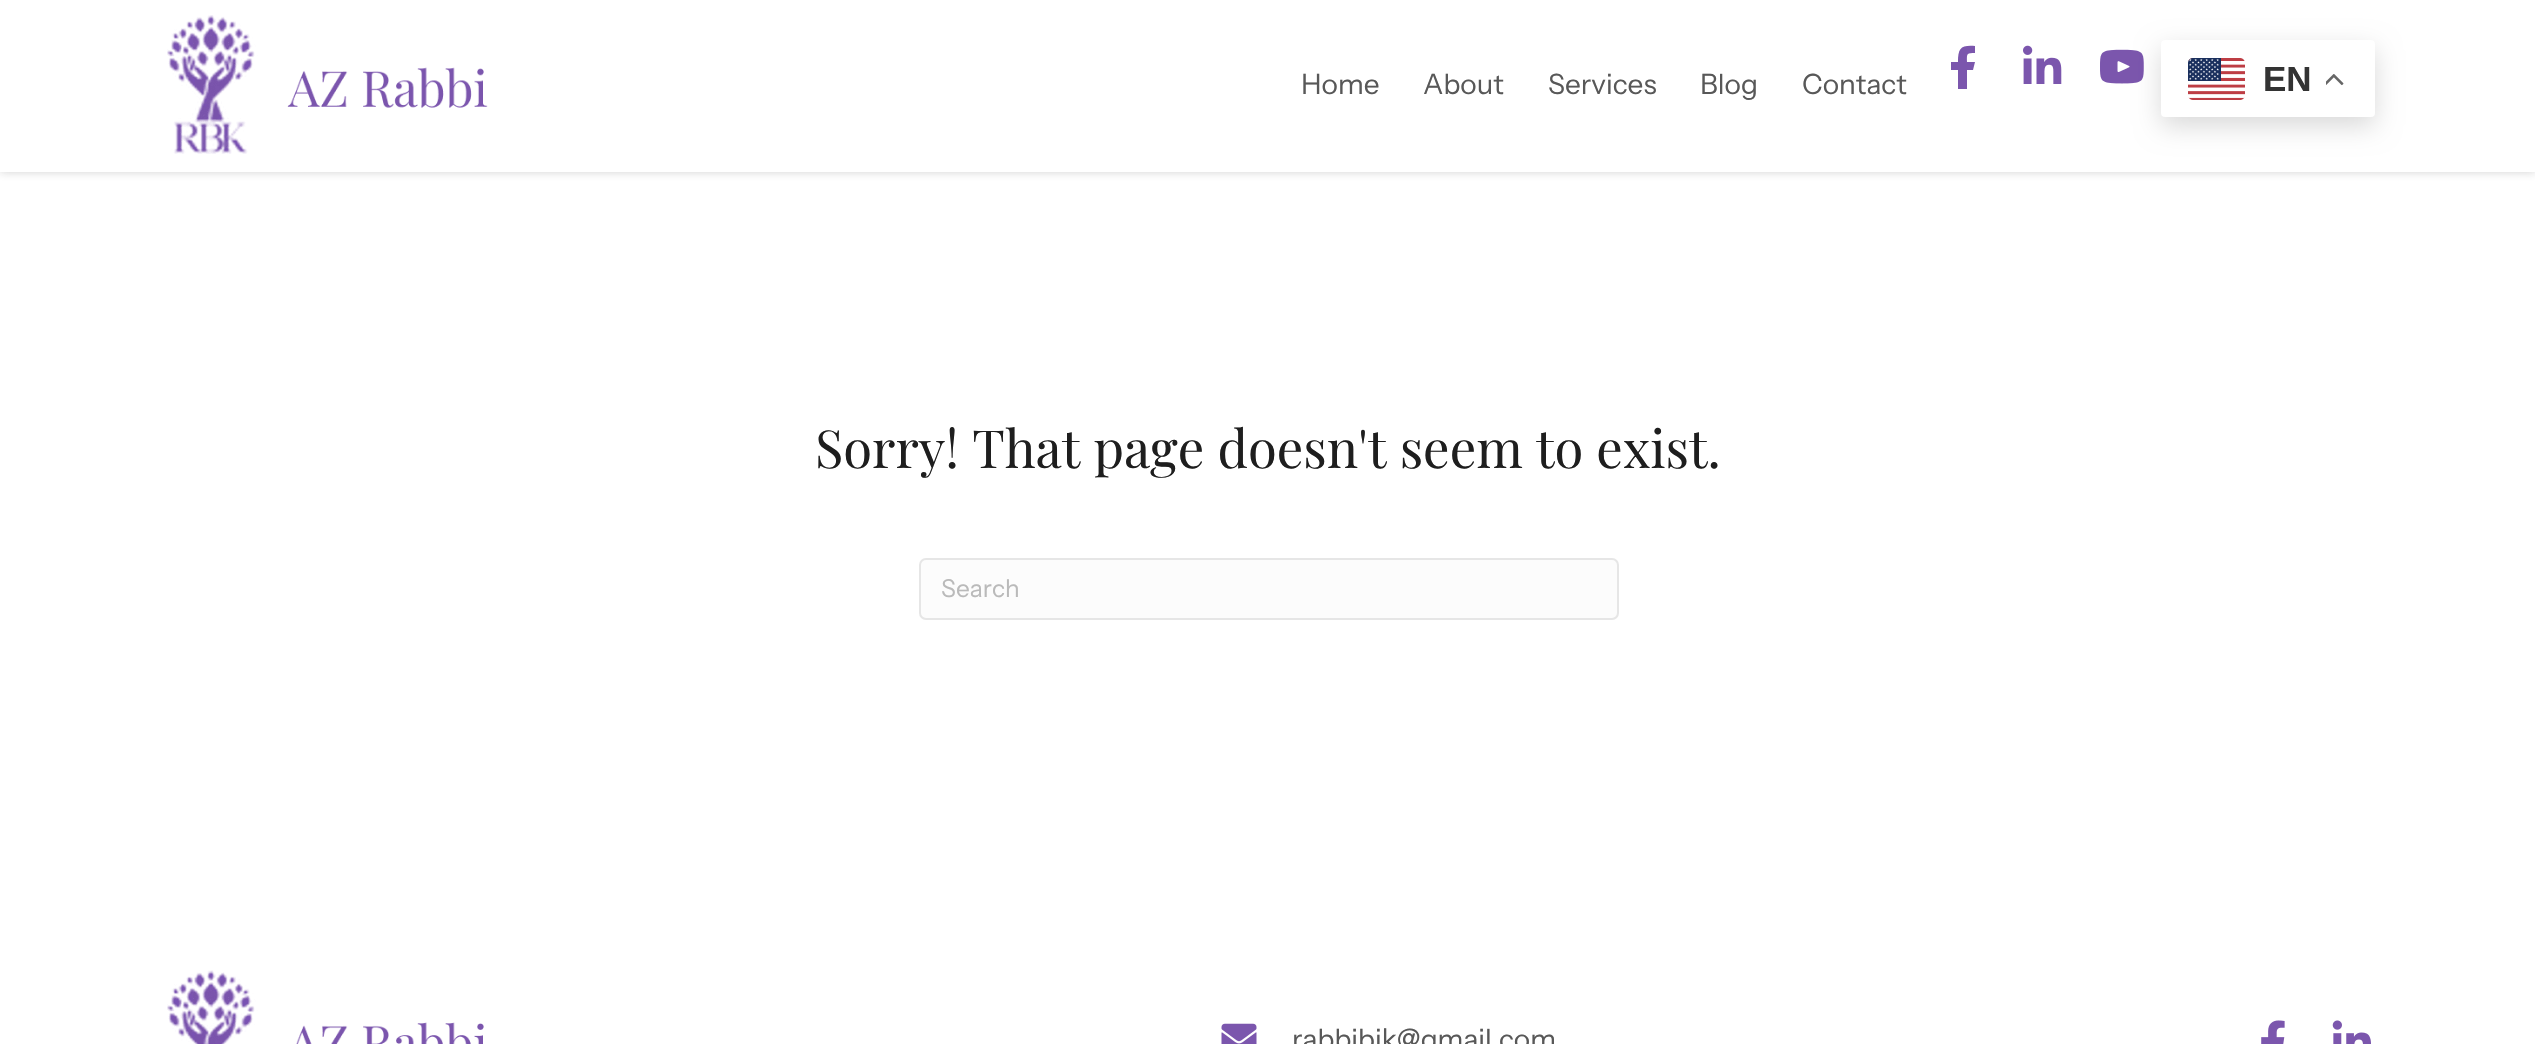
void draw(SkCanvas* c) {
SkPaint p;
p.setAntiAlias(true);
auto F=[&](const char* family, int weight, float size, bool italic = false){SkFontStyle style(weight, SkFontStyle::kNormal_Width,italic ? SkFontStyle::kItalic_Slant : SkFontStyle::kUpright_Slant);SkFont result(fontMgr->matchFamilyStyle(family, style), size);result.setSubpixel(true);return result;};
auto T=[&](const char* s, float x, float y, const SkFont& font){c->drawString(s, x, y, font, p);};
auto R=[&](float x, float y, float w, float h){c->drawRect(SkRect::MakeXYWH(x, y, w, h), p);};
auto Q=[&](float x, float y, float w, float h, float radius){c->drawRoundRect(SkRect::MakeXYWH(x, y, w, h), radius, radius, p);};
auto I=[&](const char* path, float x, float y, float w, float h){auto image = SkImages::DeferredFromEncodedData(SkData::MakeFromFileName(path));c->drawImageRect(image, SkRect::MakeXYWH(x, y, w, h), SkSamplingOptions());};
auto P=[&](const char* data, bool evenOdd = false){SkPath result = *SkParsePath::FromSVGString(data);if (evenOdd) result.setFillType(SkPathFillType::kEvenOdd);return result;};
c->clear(0xffffffff);
p.setColor(0x331f1f1f);
p.setMaskFilter(SkMaskFilter::MakeBlur(kNormal_SkBlurStyle, 4.5));
c->drawRect(SkRect::MakeXYWH(0,0,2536,172),p);
p.setMaskFilter(nullptr);
p.setColor(0xffffffff);
R(0,0,2535,172);
I("1.png",167,15,321,139);
auto f1 = F("Instrument Sans",400,28);
p.setColor(0xff585858);
T("Home",1301,94,f1);
T("About",1423,94,f1);
T("Services",1548,94,f1);
T("Blog",1700,94,f1);
T("Contact",1802,94,f1);
p.setColor(0xff7b56ad);
c->drawPath(P("M1973 70h-6v19h-9v-19h-7v-8h7c0-14 3-17 17-16v7c-9 0-8 1-8 9h8z"),p);
I("2.png",2023,45,39,39);
I("3.png",2100,49,44,35);
p.setColor(0x26000000);
p.setMaskFilter(SkMaskFilter::MakeBlur(kNormal_SkBlurStyle, 13));
c->drawRoundRect(SkRect::MakeXYWH(2161,49,214,77),4,4,p);
p.setMaskFilter(nullptr);
p.setColor(0xffffffff);
Q(2161,40,214,77,4);
I("4.png",2188,58,57,42);
auto f2 = F("Liberation Sans",700,35);
p.setColor(0xff333333);
T("EN",2263,91,f2);
I("5.png",2326,74,18,12);
auto f3 = F("Playfair Display",400,52.5);
p.setColor(0xff1e1e1e);
T("Sorry! That page doesn't seem to exist.",815,468,f3);
p.setColor(0xfffcfcfc);
c->drawRoundRect(SkRect::MakeXYWH(920,559,698,60),6,6,p);
p.setStroke(true);
p.setStrokeWidth(2);
p.setColor(0xffe6e6e6);
c->drawRoundRect(SkRect::MakeXYWH(920,559,698,60),6,6,p);
auto f4 = F("Instrument Sans",400,24.5);
p.setStroke(false);
p.setColor(0xffbababa);
T("Search",941,597,f4);
I("6.png",167,970,317,74);
I("7.png",1221,1023,36,21);
p.setColor(0xff585858);
T("rabbibjk@gmail.com",1292,1049,f1);
I("8.png",2261,1020,24,24);
I("9.png",2332,1020,39,24);
}
